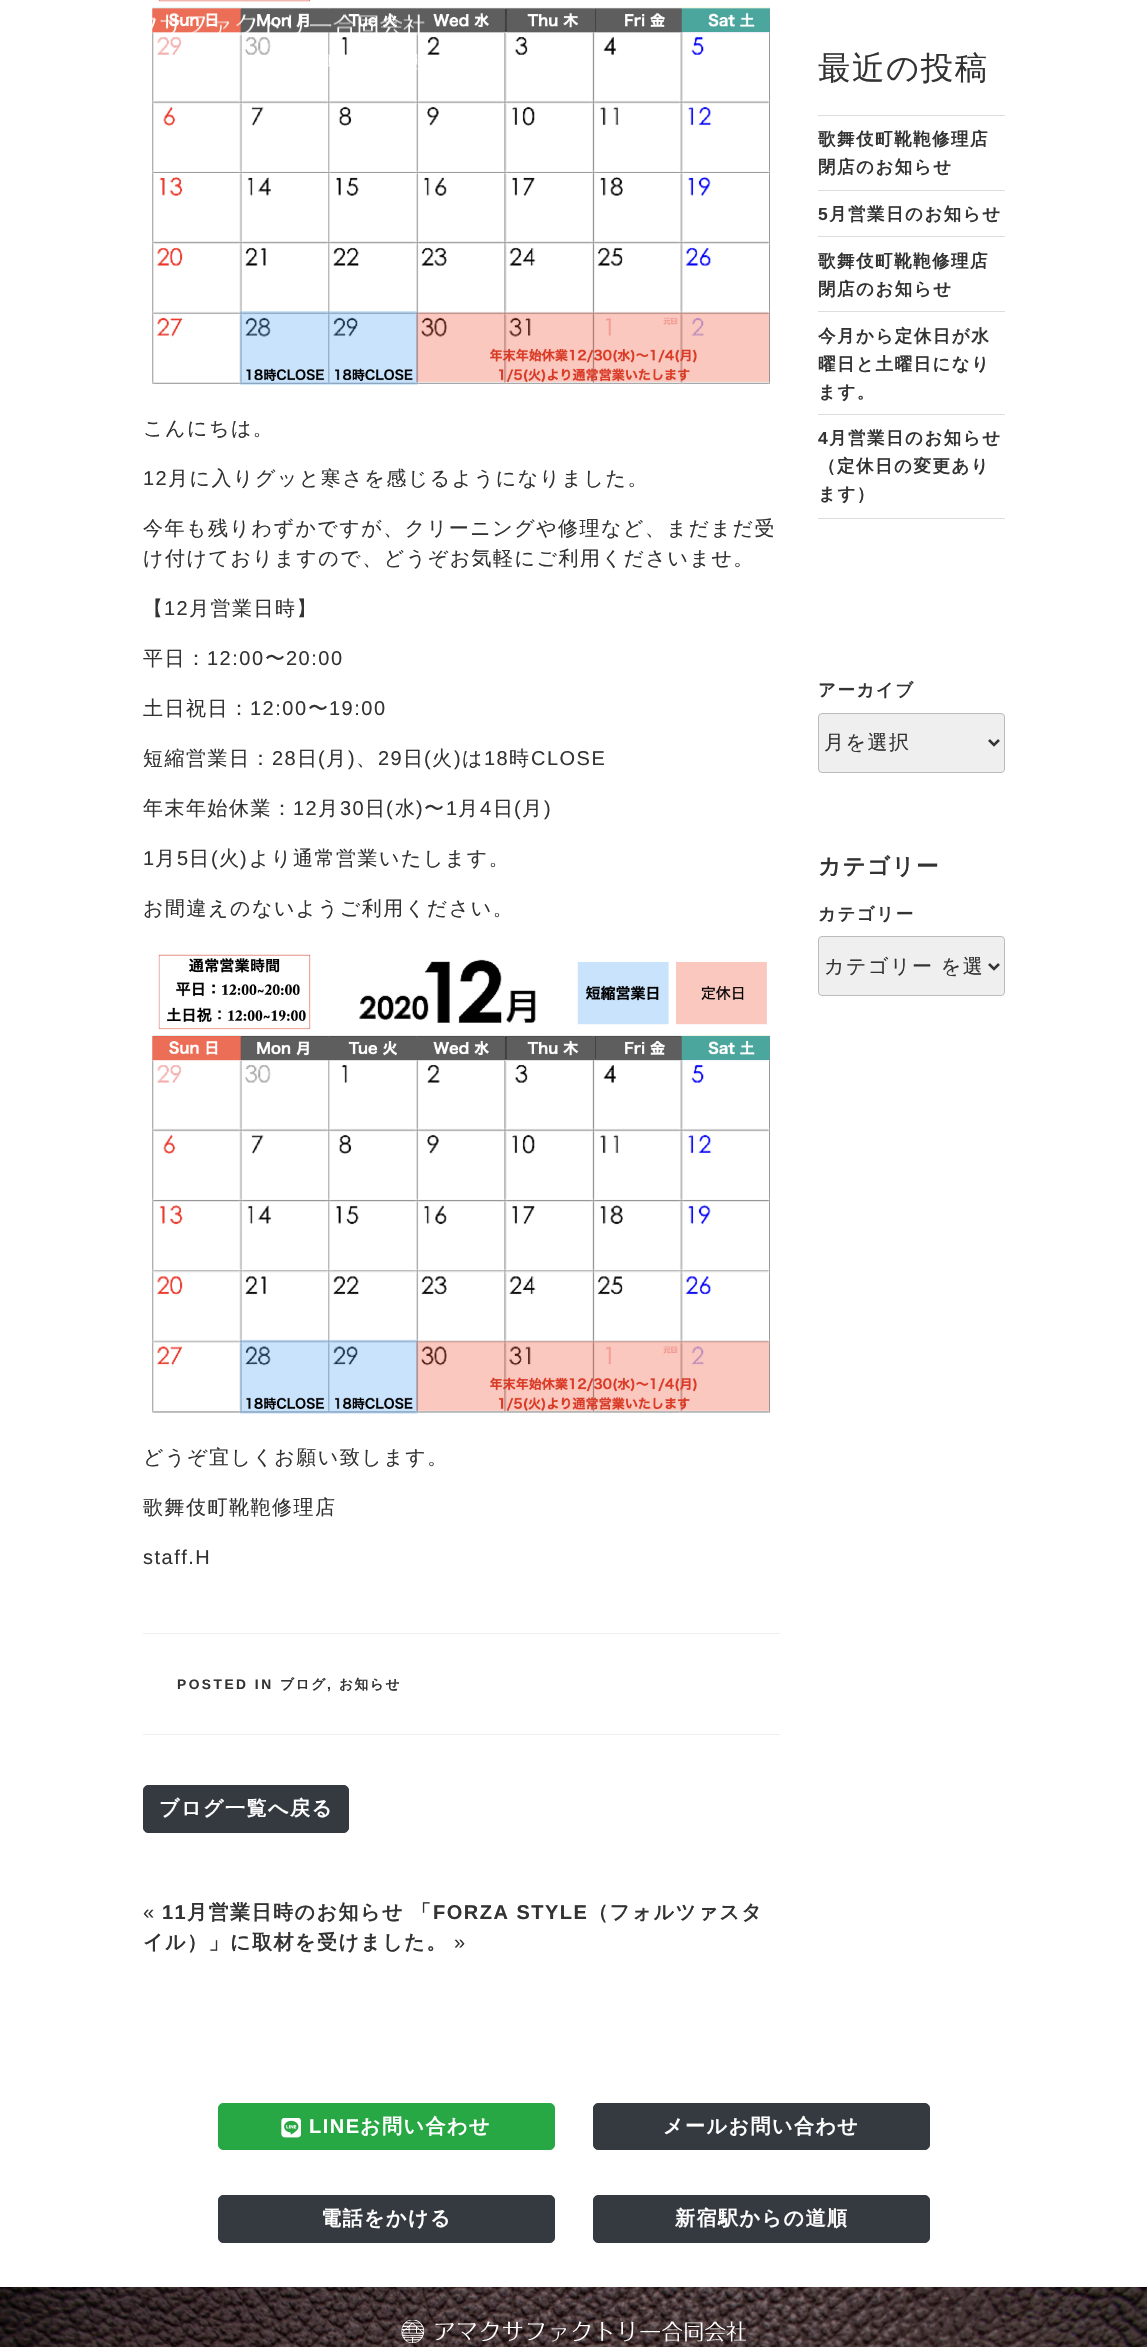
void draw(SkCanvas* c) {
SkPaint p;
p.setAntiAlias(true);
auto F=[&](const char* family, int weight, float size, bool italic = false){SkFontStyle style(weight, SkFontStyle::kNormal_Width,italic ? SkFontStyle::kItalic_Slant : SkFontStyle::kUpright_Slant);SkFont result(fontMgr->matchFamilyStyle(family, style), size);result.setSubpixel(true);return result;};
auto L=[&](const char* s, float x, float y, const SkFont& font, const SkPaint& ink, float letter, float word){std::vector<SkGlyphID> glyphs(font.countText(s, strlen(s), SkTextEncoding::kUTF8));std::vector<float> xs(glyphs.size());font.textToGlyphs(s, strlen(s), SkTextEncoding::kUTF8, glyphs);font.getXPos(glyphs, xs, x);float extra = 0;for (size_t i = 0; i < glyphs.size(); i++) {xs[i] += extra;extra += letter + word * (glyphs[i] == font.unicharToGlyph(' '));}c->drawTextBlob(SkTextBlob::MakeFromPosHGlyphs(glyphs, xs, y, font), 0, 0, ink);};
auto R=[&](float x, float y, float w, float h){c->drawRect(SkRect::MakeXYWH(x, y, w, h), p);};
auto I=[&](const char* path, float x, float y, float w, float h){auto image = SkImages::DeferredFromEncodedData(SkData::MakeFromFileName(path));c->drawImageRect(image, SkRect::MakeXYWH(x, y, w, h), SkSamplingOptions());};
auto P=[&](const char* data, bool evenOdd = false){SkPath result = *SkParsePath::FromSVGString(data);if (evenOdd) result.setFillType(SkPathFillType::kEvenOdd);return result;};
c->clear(0xffffffff);
I("2.png",152,0,618,385);
I("1.png",152,14,273,56);
auto f1 = F("WenQuanYi Zen Hei",500,20);
p.setColor(0xff333333);
L("こんにちは。",143,435,f1,p,1.5,0);
auto f2 = F("Liberation Sans",400,20);
L("12",143,485,f2,p,1.5,0);
L("月に入りグッと寒さを感じるようになりました。",168,485,f1,p,1.5,0);
L("今年も残りわずかですが、クリーニングや修理など、まだまだ受",143,535,f1,p,1.5,0);
L("け付けておりますので、どうぞお気軽にご利用くださいませ。",143,565,f1,p,1.5,0);
L("【",143,615,f1,p,1.5,0);
L("12",164,615,f2,p,1.5,0);
L("月営業日時】",189,615,f1,p,1.5,0);
L("平日：",143,665,f1,p,1.5,0);
L("12:00",207,665,f2,p,1.5,0);
L("〜",265,665,f1,p,1.5,0);
L("20:00",286,665,f2,p,1.5,0);
L("土日祝日：",143,715,f1,p,1.5,0);
L("12:00",250,715,f2,p,1.5,0);
L("〜",308,715,f1,p,1.5,0);
L("19:00",329,715,f2,p,1.5,0);
L("短縮営業日：",143,765,f1,p,1.5,0);
L("28",272,765,f2,p,1.5,0);
L("日",297,765,f1,p,1.5,0);
L("(",318,765,f2,p,1.5,0);
L("月",326,765,f1,p,1.5,0);
L(")",348,765,f2,p,1.5,0);
L("、",356,765,f1,p,1.5,0);
L("29",378,765,f2,p,1.5,0);
L("日",403,765,f1,p,1.5,0);
L("(",424,765,f2,p,1.5,0);
L("火",432,765,f1,p,1.5,0);
L(")",454,765,f2,p,1.5,0);
L("は",462,765,f1,p,1.5,0);
L("18",484,765,f2,p,1.5,0);
L("時",509,765,f1,p,1.5,0);
L("CLOSE",531,765,f2,p,1.5,0);
L("年末年始休業：",143,815,f1,p,1.5,0);
L("12",293,815,f2,p,1.5,0);
L("月",318,815,f1,p,1.5,0);
L("30",340,815,f2,p,1.5,0);
L("日",365,815,f1,p,1.5,0);
L("(",386,815,f2,p,1.5,0);
L("水",395,815,f1,p,1.5,0);
L(")",416,815,f2,p,1.5,0);
L("〜",424,815,f1,p,1.5,0);
L("1",446,815,f2,p,1.5,0);
L("月",458,815,f1,p,1.5,0);
L("4",480,815,f2,p,1.5,0);
L("日",493,815,f1,p,1.5,0);
L("(",514,815,f2,p,1.5,0);
L("月",522,815,f1,p,1.5,0);
L(")",544,815,f2,p,1.5,0);
L("1",143,865,f2,p,1.5,0);
L("月",155,865,f1,p,1.5,0);
L("5",177,865,f2,p,1.5,0);
L("日",189,865,f1,p,1.5,0);
L("(",211,865,f2,p,1.5,0);
L("火",219,865,f1,p,1.5,0);
L(")",240,865,f2,p,1.5,0);
L("より通常営業いたします。",249,865,f1,p,1.5,0);
L("お間違えのないようご利用ください。",143,915,f1,p,1.5,0);
I("3.png",152,954,618,460);
L("どうぞ宜しくお願い致します。",143,1464,f1,p,1.5,0);
L("歌舞伎町靴鞄修理店",143,1514,f1,p,1.5,0);
L("staff.H",143,1564,f2,p,1.5,0);
p.setColor(0xffeeeeee);
R(143,1633,637,1);
R(143,1734,637,1);
auto f3 = F("Liberation Sans",700,13.75);
p.setColor(0xff333333);
L("POSTED IN",177,1689,f3,p,2.5,0);
auto f4 = F("WenQuanYi Zen Hei",700,13.75);
L("ブログ",280,1689,f4,p,1.5,0);
L(",",327,1689,f3,p,2.5,0);
L("お知らせ",339,1689,f4,p,1.5,0);
p.setColor(0xff343a40);
c->drawRoundRect(SkRect::MakeXYWH(143.5,1785.5,205,47),4.5,4.5,p);
p.setStroke(true);
p.setStrokeWidth(1);
c->drawRoundRect(SkRect::MakeXYWH(143.5,1785.5,205,47),4.5,4.5,p);
auto f5 = F("WenQuanYi Zen Hei",700,20);
p.setStroke(false);
p.setColor(0xffffffff);
L("ブログ一覧へ戻る",159,1815,f5,p,1.5,0);
p.setColor(0xff333333);
L("«",143,1919,f2,p,1.5,0);
auto f6 = F("Liberation Sans",700,20);
L("11",162,1919,f6,p,1.5,0);
L("月営業日時のお知らせ",187,1919,f5,p,1.5,0);
L("「",411,1919,f5,p,1.5,0);
L("FORZA STYLE",433,1919,f6,p,1.5,0);
L("（フォルツァスタ",588,1919,f5,p,1.5,0);
L("イル）」に取材を受けました。",143,1949,f5,p,1.5,0);
L("»",454,1949,f2,p,1.5,0);
auto f7 = F("WenQuanYi Zen Hei",500,32.5);
L("最近の投稿",818,79,f7,p,1.5,0);
p.setColor(0xffdddddd);
R(818,115,187,1);
R(818,190,187,1);
auto f8 = F("WenQuanYi Zen Hei",700,17.5);
p.setColor(0xff333333);
L("歌舞伎町靴鞄修理店",818,145,f8,p,1.5,0);
L("閉店のお知らせ",818,173,f8,p,1.5,0);
p.setColor(0xffdddddd);
R(818,236,187,1);
auto f9 = F("Liberation Sans",700,17.5);
p.setColor(0xff333333);
L("5",818,220,f9,p,1.5,0);
L("月営業日のお知らせ",829,220,f8,p,1.5,0);
p.setColor(0xffdddddd);
R(818,311,187,1);
p.setColor(0xff333333);
L("歌舞伎町靴鞄修理店",818,267,f8,p,1.5,0);
L("閉店のお知らせ",818,295,f8,p,1.5,0);
p.setColor(0xffdddddd);
R(818,414,187,1);
p.setColor(0xff333333);
L("今月から定休日が水",818,342,f8,p,1.5,0);
L("曜日と土曜日になり",818,370,f8,p,1.5,0);
L("ます。",818,398,f8,p,1.5,0);
p.setColor(0xffdddddd);
R(818,518,187,1);
p.setColor(0xff333333);
L("4",818,444,f9,p,1.5,0);
L("月営業日のお知らせ",829,444,f8,p,1.5,0);
L("（定休日の変更あり",818,472,f8,p,1.5,0);
L("ます）",818,500,f8,p,1.5,0);
L("アーカイブ",818,696,f8,p,1.5,0);
p.setColor(0xffefefef);
c->drawRoundRect(SkRect::MakeXYWH(818.5,713.5,186,59),3.5,3.5,p);
p.setStroke(true);
p.setColor(0xffbbbbbb);
c->drawRoundRect(SkRect::MakeXYWH(818.5,713.5,186,59),3.5,3.5,p);
p.setStrokeWidth(2.5);
p.setColor(0xff333333);
c->drawPath(P("M989 740l5 5l5-5"),p);
p.setStroke(false);
L("月を選択",824,749,f1,p,1.5,0);
auto f10 = F("WenQuanYi Zen Hei",700,22.5);
L("カテゴリー",818,874,f10,p,1.5,0);
L("カテゴリー",818,920,f8,p,1.5,0);
p.setColor(0xffefefef);
c->drawRoundRect(SkRect::MakeXYWH(818.5,936.5,186,59),3.5,3.5,p);
p.setStroke(true);
p.setStrokeWidth(1);
p.setColor(0xffbbbbbb);
c->drawRoundRect(SkRect::MakeXYWH(818.5,936.5,186,59),3.5,3.5,p);
p.setStrokeWidth(2.5);
p.setColor(0xff333333);
c->drawPath(P("M989 964l5 5l5-5"),p);
p.setStroke(false);
L("カテゴリー を選",824,973,f1,p,1.5,0);
p.setColor(0xff28a745);
c->drawRoundRect(SkRect::MakeXYWH(218.5,2103.5,336,46),4.5,4.5,p);
p.setStroke(true);
p.setStrokeWidth(1);
c->drawRoundRect(SkRect::MakeXYWH(218.5,2103.5,336,46),4.5,4.5,p);
I("4.png",281,2118,20,20);
p.setStroke(false);
p.setColor(0xffffffff);
L("LINE",309,2133,f6,p,1.5,0);
L("お問い合わせ",360,2133,f5,p,1.5,0);
p.setColor(0xff343a40);
c->drawRoundRect(SkRect::MakeXYWH(593.5,2103.5,336,46),4.5,4.5,p);
p.setStroke(true);
c->drawRoundRect(SkRect::MakeXYWH(593.5,2103.5,336,46),4.5,4.5,p);
p.setStroke(false);
p.setColor(0xffffffff);
L("メールお問い合わせ",663,2133,f5,p,1.5,0);
p.setColor(0xff343a40);
c->drawRoundRect(SkRect::MakeXYWH(218.5,2195.5,336,47),4.5,4.5,p);
p.setStroke(true);
c->drawRoundRect(SkRect::MakeXYWH(218.5,2195.5,336,47),4.5,4.5,p);
p.setStroke(false);
p.setColor(0xffffffff);
L("電話をかける",321,2225,f5,p,1.5,0);
p.setColor(0xff343a40);
c->drawRoundRect(SkRect::MakeXYWH(593.5,2195.5,336,47),4.5,4.5,p);
p.setStroke(true);
c->drawRoundRect(SkRect::MakeXYWH(593.5,2195.5,336,47),4.5,4.5,p);
p.setStroke(false);
p.setColor(0xffffffff);
L("新宿駅からの道順",675,2225,f5,p,1.5,0);
I("5.png",0,2287,1147,60);
I("6.png",401,2320,345,23);
}
